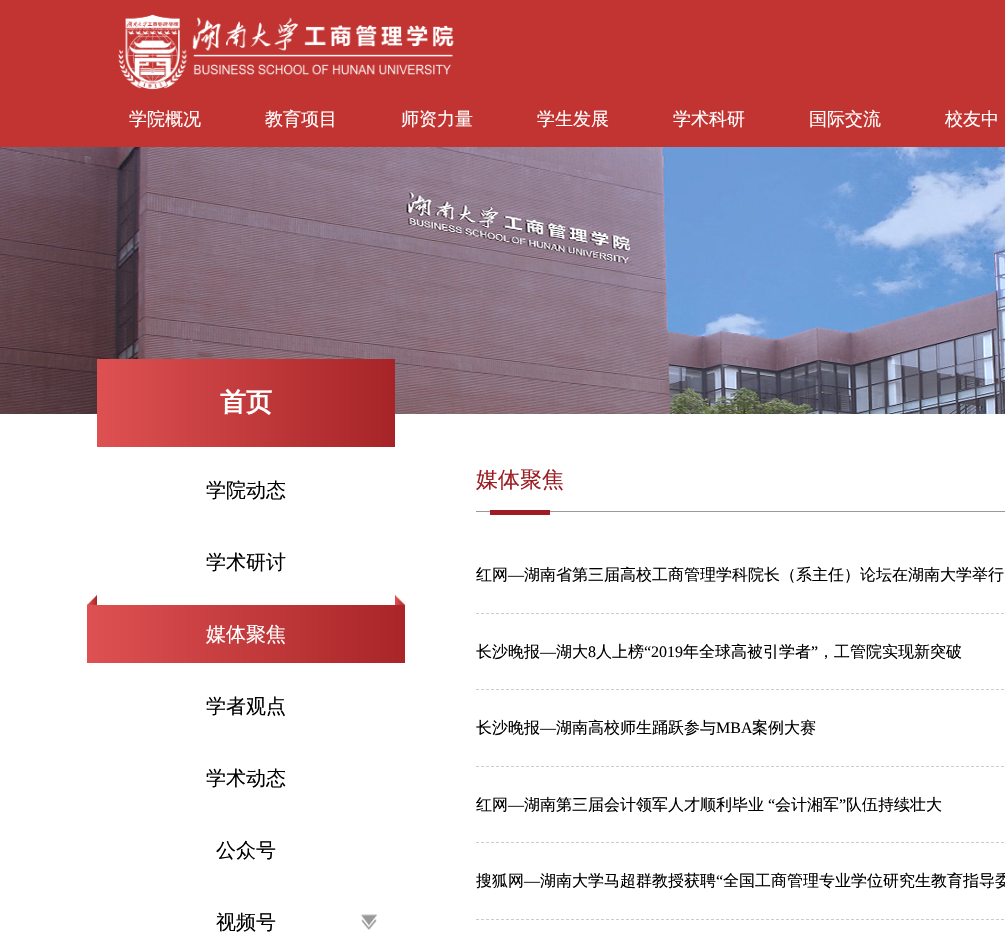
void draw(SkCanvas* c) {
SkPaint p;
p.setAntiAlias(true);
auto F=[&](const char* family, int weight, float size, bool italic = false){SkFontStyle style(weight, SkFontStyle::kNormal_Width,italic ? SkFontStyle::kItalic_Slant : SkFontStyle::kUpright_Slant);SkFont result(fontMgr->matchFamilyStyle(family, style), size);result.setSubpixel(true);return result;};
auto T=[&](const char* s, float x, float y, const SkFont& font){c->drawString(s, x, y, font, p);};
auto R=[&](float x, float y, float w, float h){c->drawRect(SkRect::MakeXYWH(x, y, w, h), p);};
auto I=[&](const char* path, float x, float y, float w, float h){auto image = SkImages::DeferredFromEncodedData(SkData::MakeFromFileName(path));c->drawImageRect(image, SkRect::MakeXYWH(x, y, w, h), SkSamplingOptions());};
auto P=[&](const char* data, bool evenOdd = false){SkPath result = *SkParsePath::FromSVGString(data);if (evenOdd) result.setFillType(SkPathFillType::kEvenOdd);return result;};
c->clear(0xffffffff);
p.setColor(0xffc13432);
R(0,0,1005,147);
I("1.png",118,14,336,76);
auto f1 = F("WenQuanYi Zen Hei",500,18);
p.setColor(0xffffffff);
T("学院概况",129,125,f1);
T("教育项目",265,125,f1);
T("师资力量",401,125,f1);
T("学生发展",537,125,f1);
T("学术科研",673,125,f1);
T("国际交流",809,125,f1);
T("校友中",945,125,f1);
I("2.png",0,147,1005,267);
{
const SkColor colors[] = {0xffde5152,0xffa62427};
const float stops[] = {0,1};
const SkPoint ends[] = {{97,403}, {395,403}};
p.setShader(SkGradientShader::MakeLinear(ends, colors, stops, 2, SkTileMode::kClamp));
p.setAlpha(255);
}
R(97,359,298,88);
auto f2 = F("WenQuanYi Zen Hei",700,26);
p.setShader(nullptr);
p.setColor(0xffffffff);
T("首页",220,411,f2);
auto f3 = F("WenQuanYi Zen Hei",500,20);
p.setColor(0xff000000);
T("学院动态",206,497,f3);
T("学术研讨",206,569,f3);
{
const SkColor colors[] = {0xffde5152,0xffa92528};
const float stops[] = {0,1};
const SkPoint ends[] = {{87,634}, {405,634}};
p.setShader(SkGradientShader::MakeLinear(ends, colors, stops, 2, SkTileMode::kClamp));
p.setAlpha(255);
}
R(87,605,318,58);
I("3.png",87,595,10,10);
I("4.png",395,595,10,10);
p.setShader(nullptr);
p.setColor(0xffffffff);
T("媒体聚焦",206,641,f3);
p.setColor(0xff000000);
T("学者观点",206,713,f3);
T("学术动态",206,785,f3);
T("公众号",216,857,f3);
T("视频号",216,929,f3);
I("5.png",361,914,16,16);
p.setColor(0xff999999);
R(476,511,529,1);
auto f4 = F("WenQuanYi Zen Hei",500,22);
p.setColor(0xff9d1d22);
T("媒体聚焦",476,487,f4);
R(490,510,60,5);
p.setStroke(true);
p.setStrokeWidth(1);
p.setColor(0xffcccccc);
p.setPathEffect(SkDashPathEffect::Make({{3,2}}, 0));
c->drawPath(P("M476 613.5h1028"),p);
p.setPathEffect(nullptr);
auto f5 = F("WenQuanYi Zen Hei",500,16);
p.setStroke(false);
p.setColor(0xff000000);
T("红网",476,580,f5);
auto f6 = F("Liberation Serif",400,16);
T("—",508,580,f6);
T("湖南省第三届高校工商管理学科院长（系主任）论坛在湖南大学举行",524,580,f5);
p.setStroke(true);
p.setColor(0xffcccccc);
p.setPathEffect(SkDashPathEffect::Make({{3,2}}, 0));
c->drawPath(P("M476 689.5h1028"),p);
p.setPathEffect(nullptr);
p.setStroke(false);
p.setColor(0xff000000);
T("长沙晚报",476,657,f5);
T("—",540,657,f6);
T("湖大",556,657,f5);
T("8",588,657,f6);
T("人上榜",596,657,f5);
T("“2019",644,657,f6);
T("年全球高被引学者",683,657,f5);
T("”",811,657,f6);
T("，工管院实现新突破",818,657,f5);
p.setStroke(true);
p.setColor(0xffcccccc);
p.setPathEffect(SkDashPathEffect::Make({{3,2}}, 0));
c->drawPath(P("M476 766.5h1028"),p);
p.setPathEffect(nullptr);
p.setStroke(false);
p.setColor(0xff000000);
T("长沙晚报",476,733,f5);
T("—",540,733,f6);
T("湖南高校师生踊跃参与",556,733,f5);
T("MBA",716,733,f6);
T("案例大赛",752,733,f5);
p.setStroke(true);
p.setColor(0xffcccccc);
p.setPathEffect(SkDashPathEffect::Make({{3,2}}, 0));
c->drawPath(P("M476 842.5h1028"),p);
p.setPathEffect(nullptr);
p.setStroke(false);
p.setColor(0xff000000);
T("红网",476,810,f5);
T("—",508,810,f6);
T("湖南第三届会计领军人才顺利毕业",524,810,f5);
T("“",768,810,f6);
T("会计湘军",775,810,f5);
T("”",839,810,f6);
T("队伍持续壮大",846,810,f5);
p.setStroke(true);
p.setColor(0xffcccccc);
p.setPathEffect(SkDashPathEffect::Make({{3,2}}, 0));
c->drawPath(P("M476 919.5h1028"),p);
p.setPathEffect(nullptr);
p.setStroke(false);
p.setColor(0xff000000);
T("搜狐网",476,886,f5);
T("—",524,886,f6);
T("湖南大学马超群教授获聘",540,886,f5);
T("“",716,886,f6);
T("全国工商管理专业学位研究生教育指导委",723,886,f5);
}
